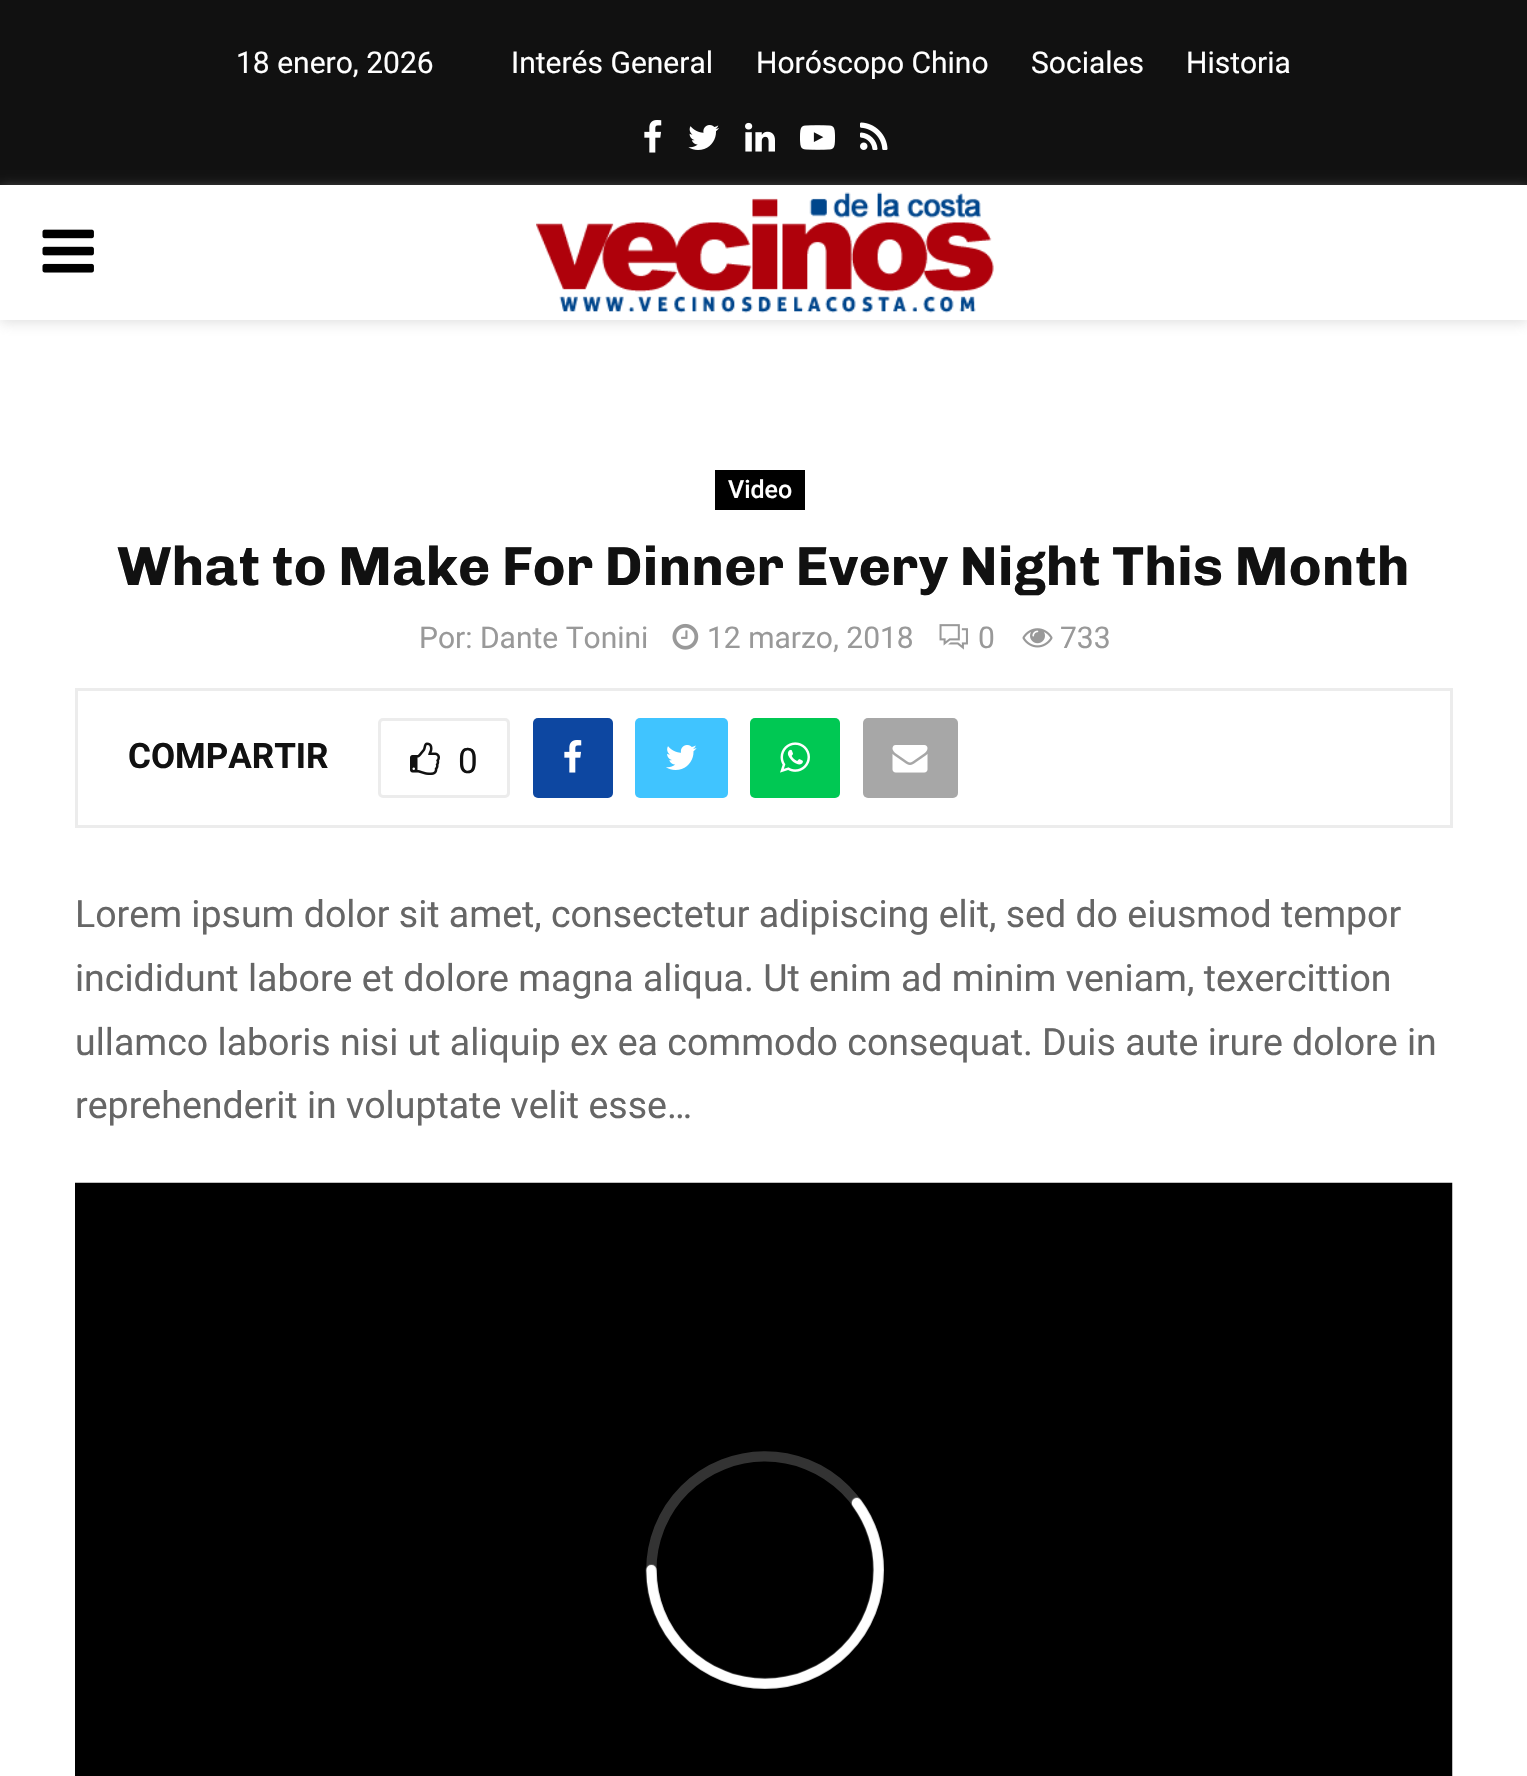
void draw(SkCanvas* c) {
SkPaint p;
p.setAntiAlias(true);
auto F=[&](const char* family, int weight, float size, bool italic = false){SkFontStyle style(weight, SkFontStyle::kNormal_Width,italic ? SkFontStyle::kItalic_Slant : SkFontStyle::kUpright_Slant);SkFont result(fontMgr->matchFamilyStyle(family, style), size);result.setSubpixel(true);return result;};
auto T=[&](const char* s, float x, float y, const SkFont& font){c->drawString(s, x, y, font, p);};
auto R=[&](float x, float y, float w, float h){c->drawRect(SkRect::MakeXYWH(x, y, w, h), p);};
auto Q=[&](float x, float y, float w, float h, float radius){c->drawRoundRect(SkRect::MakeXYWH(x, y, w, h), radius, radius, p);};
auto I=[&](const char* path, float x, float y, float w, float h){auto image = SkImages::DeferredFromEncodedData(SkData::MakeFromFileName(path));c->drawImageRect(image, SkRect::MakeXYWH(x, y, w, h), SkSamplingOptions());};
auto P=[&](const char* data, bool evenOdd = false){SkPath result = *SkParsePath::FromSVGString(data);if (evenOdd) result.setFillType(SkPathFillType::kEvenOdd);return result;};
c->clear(0xffffffff);
p.setColor(0xff111111);
R(0,0,1527,185);
auto f1 = F("Roboto",400,30);
p.setColor(0xffffffff);
T("18 enero, 2026",236,73,f1);
T("Interés General",511,73,f1);
T("Horóscopo Chino",756,73,f1);
T("Sociales",1031,73,f1);
T("Historia",1186,73,f1);
I("1.png",644,120,18,33);
I("2.png",688,125,31,25);
I("3.png",745,122,30,30);
I("4.png",800,125,35,25);
I("5.png",860,122,28,28);
c->save();
c->clipPath(P("M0 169h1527v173h-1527zm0 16h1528v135h-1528z",true),true);
p.setColor(0x75bebebe);
p.setMaskFilter(SkMaskFilter::MakeBlur(kNormal_SkBlurStyle, 6));
c->drawRect(SkRect::MakeXYWH(0,188,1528,135),p);
p.setMaskFilter(nullptr);
c->restore();
I("6.png",42,229,52,44);
I("7.png",536,192,458,121);
p.setColor(0xff000000);
R(715,470,90,40);
auto f2 = F("Roboto",500,25);
p.setColor(0xffffffff);
T("Video",728,498,f2);
auto f3 = F("Chivo",700,55);
p.setColor(0xff111111);
T("What to Make For Dinner Every Night This Month",117,585,f3);
p.setColor(0xff999999);
T("Por: Dante Tonini",419,648,f1);
I("8.png",672,623,27,27);
T("12 marzo, 2018",707,648,f1);
I("9.png",939,624,29,26);
T("0",978,648,f1);
I("10.png",1022,628,31,20);
T("733",1060,648,f1);
p.setStroke(true);
p.setStrokeWidth(3);
p.setColor(0xffececec);
c->drawRect(SkRect::MakeXYWH(76.5,689.5,1375,137),p);
auto f4 = F("Roboto",700,35);
p.setStroke(false);
p.setColor(0xff111111);
T("COMPARTIR",128,768,f4);
p.setStroke(true);
p.setColor(0xffececec);
c->drawRoundRect(SkRect::MakeXYWH(379.5,719.5,129,77),3.5,3.5,p);
I("11.png",410,742,30,33);
auto f5 = F("Roboto",400,35);
p.setStroke(false);
p.setColor(0xff111111);
T("0",458,773,f5);
p.setColor(0xff0d47a1);
Q(533,718,80,80,5);
I("12.png",564,740,18,33);
p.setColor(0xff40c4ff);
Q(635,718,93,80,5);
I("13.png",666,745,31,25);
p.setColor(0xff00c853);
Q(750,718,90,80,5);
I("14.png",780,742,30,31);
p.setColor(0xffa7a7a7);
Q(863,718,95,80,5);
I("15.png",892,745,36,28);
auto f6 = F("Roboto",400,37.5);
p.setColor(0xff666666);
T("Lorem ipsum dolor sit amet, consectetur adipiscing elit, sed do eiusmod tempor",75,927,f6);
T("incididunt labore et dolore magna aliqua. Ut enim ad minim veniam, texercittion",75,991,f6);
T("ullamco laboris nisi ut aliquip ex ea commodo consequat. Duis aute irure dolore in",75,1055,f6);
T("reprehenderit in voluptate velit esse…",75,1118,f6);
I("16.png",75,1182,1378,594);
}
